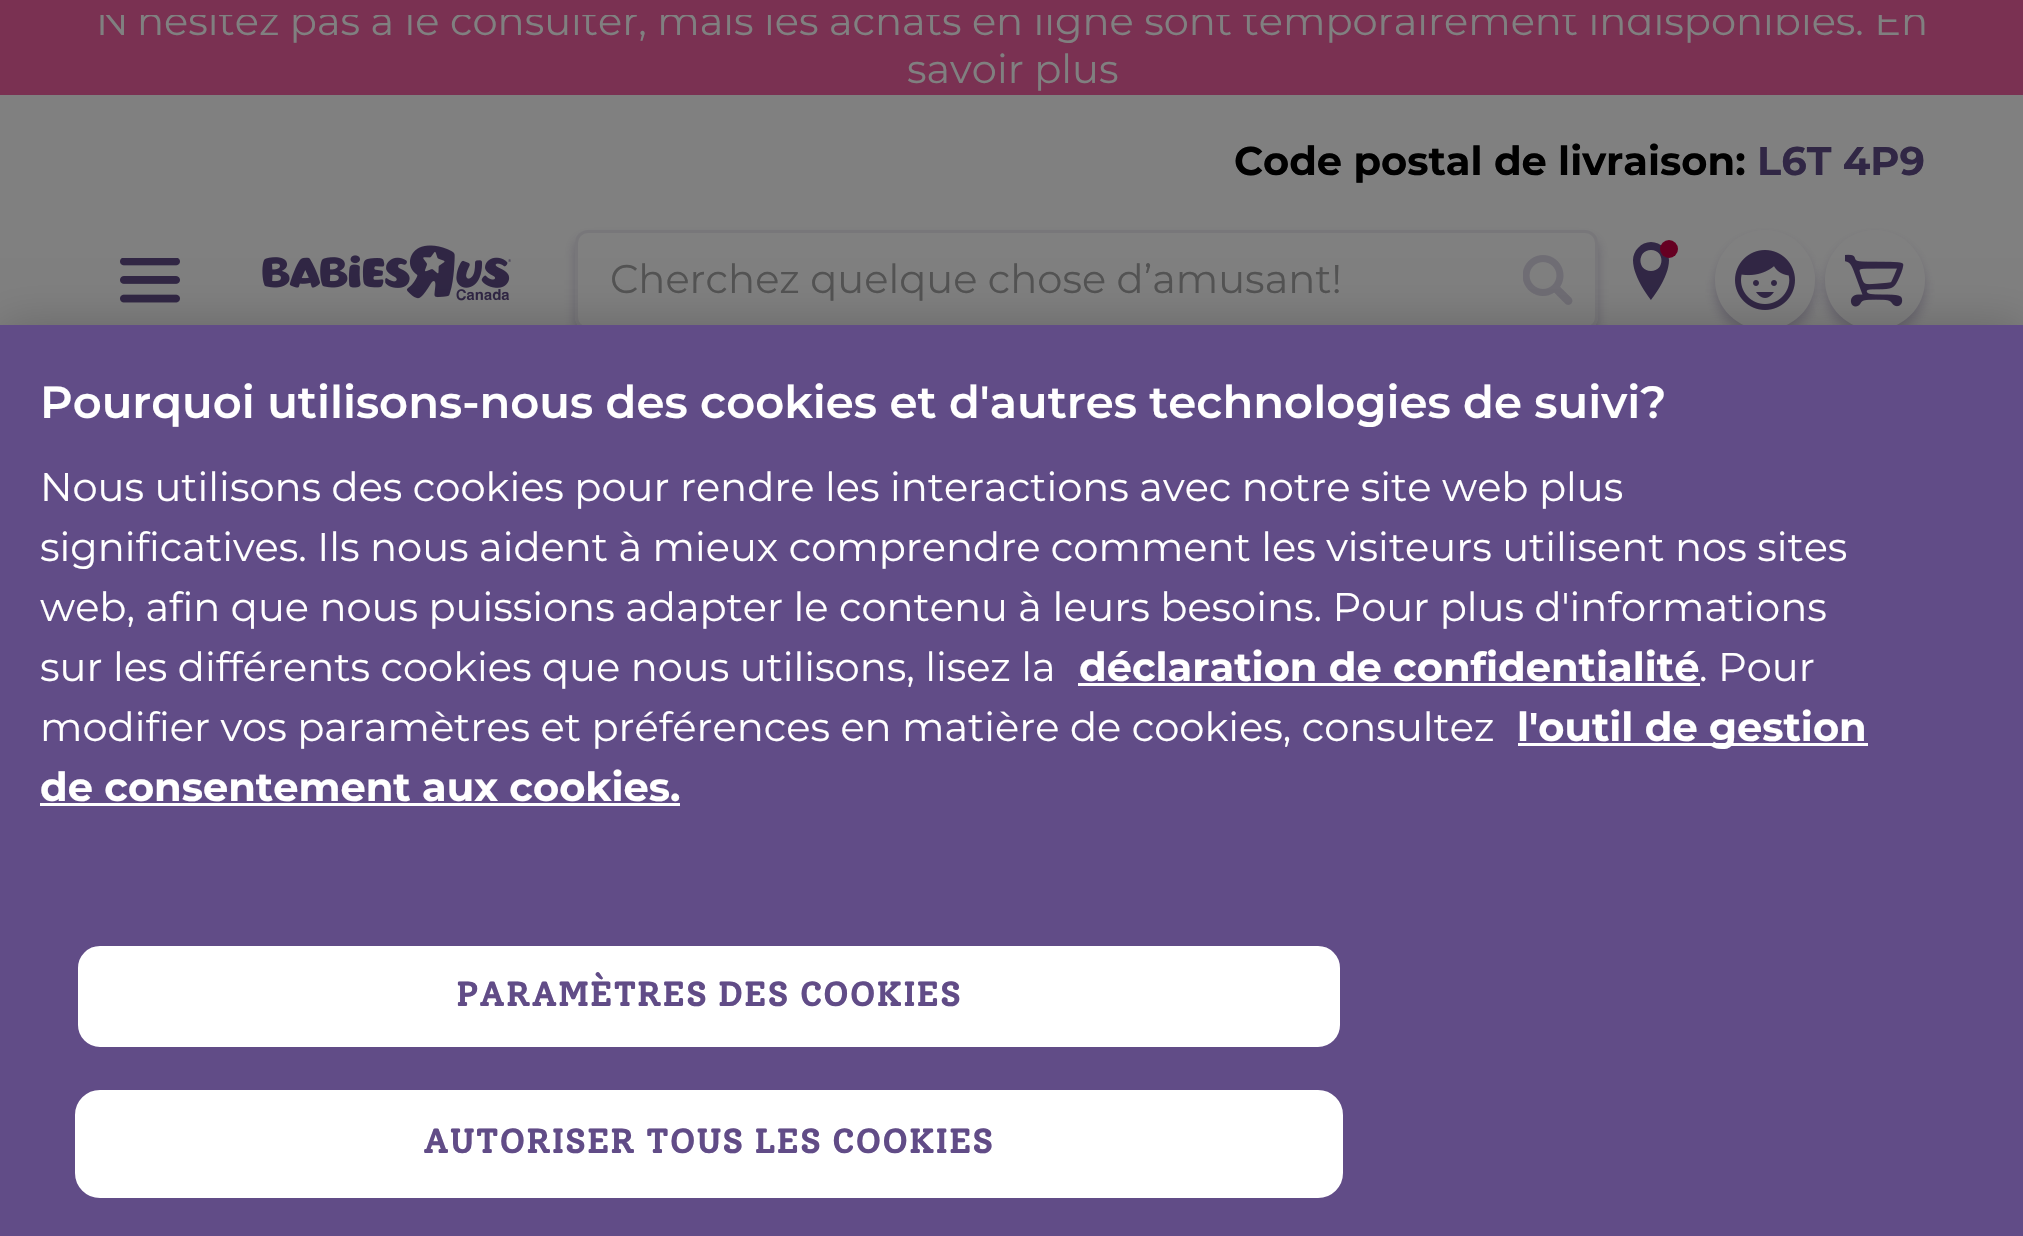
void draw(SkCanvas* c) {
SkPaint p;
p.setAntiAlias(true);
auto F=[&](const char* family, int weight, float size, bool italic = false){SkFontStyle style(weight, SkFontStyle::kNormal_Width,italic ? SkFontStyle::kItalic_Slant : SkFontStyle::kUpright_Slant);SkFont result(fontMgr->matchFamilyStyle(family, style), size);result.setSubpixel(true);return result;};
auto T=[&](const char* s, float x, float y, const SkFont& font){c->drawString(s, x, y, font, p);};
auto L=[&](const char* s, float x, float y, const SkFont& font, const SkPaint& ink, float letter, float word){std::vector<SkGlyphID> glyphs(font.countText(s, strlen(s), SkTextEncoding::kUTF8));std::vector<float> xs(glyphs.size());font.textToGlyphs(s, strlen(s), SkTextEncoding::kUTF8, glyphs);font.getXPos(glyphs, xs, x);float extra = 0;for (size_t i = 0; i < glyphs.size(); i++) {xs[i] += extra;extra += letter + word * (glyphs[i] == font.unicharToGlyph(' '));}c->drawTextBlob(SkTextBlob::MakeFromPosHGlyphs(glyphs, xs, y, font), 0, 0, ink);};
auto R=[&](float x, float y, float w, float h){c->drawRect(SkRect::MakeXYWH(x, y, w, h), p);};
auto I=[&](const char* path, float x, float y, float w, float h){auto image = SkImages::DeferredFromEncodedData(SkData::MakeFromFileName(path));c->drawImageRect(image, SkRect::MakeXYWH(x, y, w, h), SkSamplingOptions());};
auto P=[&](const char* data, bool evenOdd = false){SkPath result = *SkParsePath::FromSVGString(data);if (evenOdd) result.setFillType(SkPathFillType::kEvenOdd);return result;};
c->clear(0xff808080);
p.setColor(0xff7a3152);
R(0,0,2023,95);
c->save();
c->clipRect(SkRect::MakeXYWH(50,15,1925,80));
auto f1 = F("Montserrat",400,40);
p.setColor(0xff808080);
T("N’hésitez pas à le consulter, mais les achats en ligne sont temporairement indisponibles. En",96,35,f1);
c->restore();
T("savoir plus",907,83,f1);
auto f2 = F("Montserrat",700,40);
p.setColor(0xff000000);
T("Code postal de livraison:",1234,175,f2);
p.setColor(0xff312745);
T("L6T 4P9",1757,175,f2);
I("1.png",120,258,60,45);
I("2.png",262,245,249,56);
c->save();
c->clipPath(P("M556 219h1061v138h-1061zm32 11h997c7 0 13 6 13 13v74c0 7-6 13-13 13h-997c-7 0-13-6-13-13v-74c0-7 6-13 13-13z",true),true);
p.setColor(0x4d312745);
p.setMaskFilter(SkMaskFilter::MakeBlur(kNormal_SkBlurStyle, 6));
c->drawRoundRect(SkRect::MakeXYWH(575,238,1023,100),13,13,p);
p.setMaskFilter(nullptr);
c->restore();
p.setStroke(true);
p.setStrokeWidth(3);
p.setColor(0xff78777a);
c->drawRoundRect(SkRect::MakeXYWH(576.5,231.5,1020,97),11.5,11.5,p);
p.setStroke(false);
p.setColor(0xff535353);
T("Cherchez quelque chose d’amusant!",610,293,f1);
I("3.png",1523,255,50,50);
p.setColor(0xff312745);
c->drawPath(P("M1651 242c-10 0-18 9-18 18c0 18 18 40 18 40c0 0 18-22 18-40c0-9-8-18-18-18zm0 29c-14 0-14-21 0-21c14 0 14 21 0 21z"),p);
p.setColor(0xff660022);
c->drawCircle(1669,249,9,p);
p.setColor(0x4d312745);
p.setMaskFilter(SkMaskFilter::MakeBlur(kNormal_SkBlurStyle, 6));
c->drawRoundRect(SkRect::MakeXYWH(1715,238,100,100),50,50,p);
p.setMaskFilter(nullptr);
p.setColor(0xff808080);
c->drawCircle(1765,280,50,p);
I("4.png",1735,250,60,60);
p.setColor(0x4d312745);
p.setMaskFilter(SkMaskFilter::MakeBlur(kNormal_SkBlurStyle, 6));
c->drawRoundRect(SkRect::MakeXYWH(1825,238,100,100),50,50,p);
p.setMaskFilter(nullptr);
p.setColor(0xff808080);
c->drawCircle(1875,280,50,p);
I("5.png",1845,254,59,53);
p.setColor(0x33000000);
p.setMaskFilter(SkMaskFilter::MakeBlur(kNormal_SkBlurStyle, 22.5));
c->drawRect(SkRect::MakeXYWH(0,325,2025,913),p);
p.setMaskFilter(nullptr);
p.setColor(0xff614c87);
R(0,325,2023,911);
auto f3 = F("Montserrat",600,45);
p.setColor(0xffffffff);
T("Pourquoi utilisons-nous des cookies et d'autres technologies de suivi?",40,418,f3);
T("Nous utilisons des cookies pour rendre les interactions avec notre site web plus",40,501,f1);
T("significatives. Ils nous aident à mieux comprendre comment les visiteurs utilisent nos sites",40,561,f1);
T("web, afin que nous puissions adapter le contenu à leurs besoins. Pour plus d'informations",40,621,f1);
T("sur les différents cookies que nous utilisons, lisez la",40,681,f1);
T("déclaration de confidentialité",1079,681,f2);
R(1078,683,622,3);
T(". Pour",1699,681,f1);
T("modifier vos paramètres et préférences en matière de cookies, consultez",40,741,f1);
R(1518,743,350,3);
T("l'outil de gestion",1517,741,f2);
T("de consentement aux cookies.",40,801,f2);
R(40,803,640,3);
c->drawRoundRect(SkRect::MakeXYWH(76.5,944.5,1265,104),23.5,23.5,p);
p.setStroke(true);
p.setColor(0xff614c87);
c->drawRoundRect(SkRect::MakeXYWH(76.5,944.5,1265,104),23.5,23.5,p);
auto f4 = F("Solway",700,35);
p.setStroke(false);
L("PARAMÈTRES DES COOKIES",456,1006,f4,p,.35,0);
p.setColor(0xffffffff);
c->drawRoundRect(SkRect::MakeXYWH(76.5,1091.5,1265,105),23.5,23.5,p);
p.setStroke(true);
c->drawRoundRect(SkRect::MakeXYWH(76.5,1091.5,1265,105),23.5,23.5,p);
p.setStroke(false);
p.setColor(0xff614c87);
L("AUTORISER TOUS LES COOKIES",423,1153,f4,p,.35,0);
}
